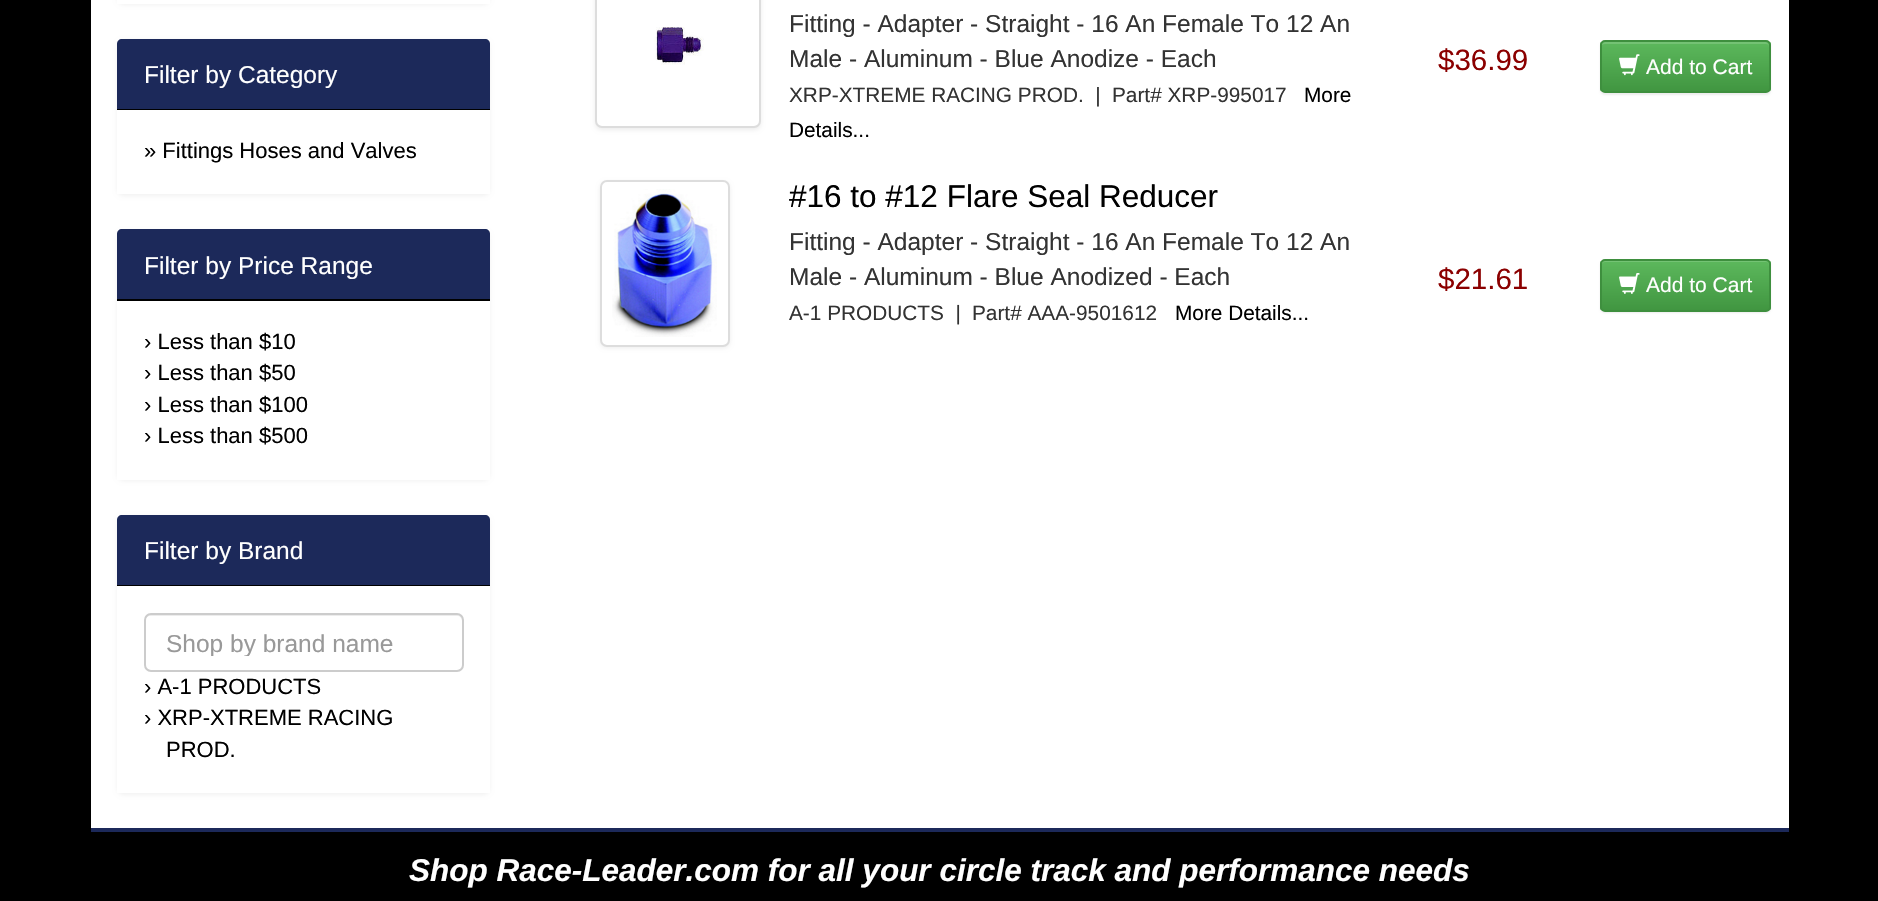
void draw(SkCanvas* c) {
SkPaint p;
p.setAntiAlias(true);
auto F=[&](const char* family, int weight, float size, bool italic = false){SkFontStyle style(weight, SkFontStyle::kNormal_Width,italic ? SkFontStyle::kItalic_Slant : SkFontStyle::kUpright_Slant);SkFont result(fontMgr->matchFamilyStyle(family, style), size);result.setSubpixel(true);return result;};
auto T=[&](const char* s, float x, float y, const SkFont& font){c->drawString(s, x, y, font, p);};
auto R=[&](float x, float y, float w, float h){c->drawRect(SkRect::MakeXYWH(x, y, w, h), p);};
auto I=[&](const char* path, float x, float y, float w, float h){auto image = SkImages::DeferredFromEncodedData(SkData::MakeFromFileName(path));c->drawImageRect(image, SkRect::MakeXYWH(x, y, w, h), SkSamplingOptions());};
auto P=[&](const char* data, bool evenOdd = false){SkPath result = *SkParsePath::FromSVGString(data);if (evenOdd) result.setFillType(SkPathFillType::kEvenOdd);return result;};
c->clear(0xff000000);
p.setColor(0xffffffff);
R(91,0,1698,828);
p.setColor(0x0d000000);
p.setMaskFilter(SkMaskFilter::MakeBlur(kNormal_SkBlurStyle, 2));
c->drawRoundRect(SkRect::MakeXYWH(117,-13,373,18),7,7,p);
p.setMaskFilter(nullptr);
p.setColor(0xffffffff);
R(117,0,373,4);
p.setColor(0x0d000000);
p.setMaskFilter(SkMaskFilter::MakeBlur(kNormal_SkBlurStyle, 2));
c->drawRoundRect(SkRect::MakeXYWH(117,40,373,156),7,7,p);
p.setMaskFilter(nullptr);
p.setColor(0xff1c295a);
c->drawPath(P("M122 39h363c3 0 5 2 5 5v66h-373v-66c0-3 2-5 5-5z"),p);
p.setColor(0xff000000);
R(117,109,373,1);
auto f1 = F("Liberation Sans",400,24.5);
p.setColor(0xffffffff);
T("Filter by Category",144,83,f1);
R(117,110,373,84);
auto f2 = F("Liberation Sans",400,22);
p.setColor(0xff000000);
T("» Fittings Hoses and Valves",144,158,f2);
p.setColor(0x0d000000);
p.setMaskFilter(SkMaskFilter::MakeBlur(kNormal_SkBlurStyle, 2));
c->drawRoundRect(SkRect::MakeXYWH(117,231,373,250),7,7,p);
p.setMaskFilter(nullptr);
p.setColor(0xff1c295a);
c->drawPath(P("M122 229h363c3 0 5 2 5 5v67h-373v-67c0-3 2-5 5-5z"),p);
p.setColor(0xff000000);
R(117,299,373,2);
p.setColor(0xffffffff);
T("Filter by Price Range",144,274,f1);
R(117,301,373,179);
p.setColor(0xff000000);
T("› Less than $10",144,349,f2);
T("› Less than $50",144,380,f2);
T("› Less than $100",144,412,f2);
T("› Less than $500",144,443,f2);
p.setColor(0x0d000000);
p.setMaskFilter(SkMaskFilter::MakeBlur(kNormal_SkBlurStyle, 2));
c->drawRoundRect(SkRect::MakeXYWH(117,516,373,279),7,7,p);
p.setMaskFilter(nullptr);
p.setColor(0xff1c295a);
c->drawPath(P("M122 515h363c3 0 5 2 5 5v66h-373v-66c0-3 2-5 5-5z"),p);
p.setColor(0xff000000);
R(117,585,373,1);
p.setColor(0xffffffff);
T("Filter by Brand",144,559,f1);
R(117,586,373,207);
p.setColor(0xffececec);
c->drawPath(P("M150 616h307c3 0 5 2 5 5v-2c0-3-2-5-5-5h-307c-3 0-5 2-5 5v2c0-3 3-5 5-5z"),p);
p.setStroke(true);
p.setStrokeWidth(2);
p.setColor(0xffcccccc);
c->drawRoundRect(SkRect::MakeXYWH(145,614,318,57),6,6,p);
c->save();
c->clipRect(SkRect::MakeXYWH(166,628,268,28));
p.setStroke(false);
p.setColor(0xff999999);
T("Shop by brand name",166,652,f1);
c->restore();
p.setColor(0xff000000);
T("› A-1 PRODUCTS",144,694,f2);
T("› XRP-XTREME RACING",144,725,f2);
T("PROD.",166,757,f2);
p.setColor(0x12000000);
p.setMaskFilter(SkMaskFilter::MakeBlur(kNormal_SkBlurStyle, 2));
c->drawRoundRect(SkRect::MakeXYWH(595,-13,166,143),7,7,p);
p.setMaskFilter(nullptr);
p.setColor(0xffffffff);
c->drawRoundRect(SkRect::MakeXYWH(596,-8,164,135),6,6,p);
p.setStroke(true);
p.setColor(0xffdddddd);
c->drawRoundRect(SkRect::MakeXYWH(596,-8,164,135),6,6,p);
I("1.png",654,27,50,38);
p.setStroke(false);
p.setColor(0xff333333);
T("Fitting - Adapter - Straight - 16 An Female To 12 An",789,32,f1);
T("Male - Aluminum - Blue Anodize - Each",789,67,f1);
auto f3 = F("Liberation Sans",400,20.8);
T("XRP-XTREME RACING PROD.  |",789,102,f3);
T("Part# XRP-995017",1112,102,f3);
p.setColor(0xff000000);
T("More",1304,102,f3);
T("Details...",789,137,f3);
auto f4 = F("Liberation Sans",400,29.5);
p.setColor(0xff8b0000);
T("$36.99",1438,70,f4);
p.setColor(0x12000000);
p.setMaskFilter(SkMaskFilter::MakeBlur(kNormal_SkBlurStyle, 1));
c->drawRoundRect(SkRect::MakeXYWH(1600,42,171,53),5,5,p);
p.setMaskFilter(nullptr);
c->save();
c->clipPath(P("M1605 40h161c3 0 5 2 5 5v43c0 3-2 5-5 5h-161c-3 0-5-2-5-5v-43c0-3 2-5 5-5z"),true);
{
const SkColor colors[] = {0xff5cb85c,0xff419641};
const float stops[] = {0,1};
const SkPoint ends[] = {{1685,42}, {1685,91}};
p.setShader(SkGradientShader::MakeLinear(ends, colors, stops, 2, SkTileMode::kClamp));
p.setAlpha(255);
}
R(1600,42,171,49);
c->restore();
p.setShader(nullptr);
p.setColor(0xff74c274);
c->drawPath(P("M1605 44h161c2 0 3 1 3 3v-1c0-2-2-4-4-4h-160c-2 0-4 2-4 4v1c0-2 2-3 4-3z"),p);
p.setStroke(true);
p.setColor(0xff3e8f3e);
c->drawRoundRect(SkRect::MakeXYWH(1601,41,169,51),4,4,p);
I("2.png",1619,54,21,22);
auto f5 = F("Liberation Sans",400,21);
p.setStroke(false);
p.setColor(0xffffffff);
T("Add to Cart",1646,74,f5);
p.setColor(0x12000000);
p.setMaskFilter(SkMaskFilter::MakeBlur(kNormal_SkBlurStyle, 2));
c->drawRoundRect(SkRect::MakeXYWH(600,182,130,166),7,7,p);
p.setMaskFilter(nullptr);
p.setColor(0xffffffff);
c->drawRoundRect(SkRect::MakeXYWH(601,181,128,165),6,6,p);
p.setStroke(true);
p.setColor(0xffdddddd);
c->drawRoundRect(SkRect::MakeXYWH(601,181,128,165),6,6,p);
I("3.png",612,189,105,148);
auto f6 = F("Liberation Sans",400,31.5);
p.setStroke(false);
p.setColor(0xff000000);
T("#16 to #12 Flare Seal Reducer",789,207,f6);
p.setColor(0xff333333);
T("Fitting - Adapter - Straight - 16 An Female To 12 An",789,250,f1);
T("Male - Aluminum - Blue Anodized - Each",789,285,f1);
T("A-1 PRODUCTS  |",789,320,f3);
T("Part# AAA-9501612",972,320,f3);
p.setColor(0xff000000);
T("More Details...",1175,320,f3);
p.setColor(0xff8b0000);
T("$21.61",1438,289,f4);
p.setColor(0x12000000);
p.setMaskFilter(SkMaskFilter::MakeBlur(kNormal_SkBlurStyle, 1));
c->drawRoundRect(SkRect::MakeXYWH(1600,261,171,52),5,5,p);
p.setMaskFilter(nullptr);
c->save();
c->clipPath(P("M1605 259h161c3 0 5 2 5 5v43c0 3-2 5-5 5h-161c-3 0-5-2-5-5v-43c0-3 2-5 5-5z"),true);
{
const SkColor colors[] = {0xff5cb85c,0xff419641};
const float stops[] = {0,1};
const SkPoint ends[] = {{1685,261}, {1685,310}};
p.setShader(SkGradientShader::MakeLinear(ends, colors, stops, 2, SkTileMode::kClamp));
p.setAlpha(255);
}
R(1600,261,171,49);
c->restore();
p.setShader(nullptr);
p.setColor(0xff74c374);
c->drawPath(P("M1605 262h161c2 0 3 2 3 4v-1c0-2-2-4-4-4h-160c-2 0-4 2-4 4v1c0-2 2-4 4-4z"),p);
p.setStroke(true);
p.setColor(0xff3e8f3e);
c->drawRoundRect(SkRect::MakeXYWH(1601,260,169,51),4,4,p);
I("4.png",1619,273,21,21);
p.setStroke(false);
p.setColor(0xffffffff);
T("Add to Cart",1646,292,f5);
p.setColor(0xff1c295a);
R(91,828,1698,4);
auto f7 = F("Liberation Sans",700,31.5,true);
p.setColor(0xffffffff);
T("Shop Race-Leader.com for all your circle track and performance needs",409,881,f7);
}
